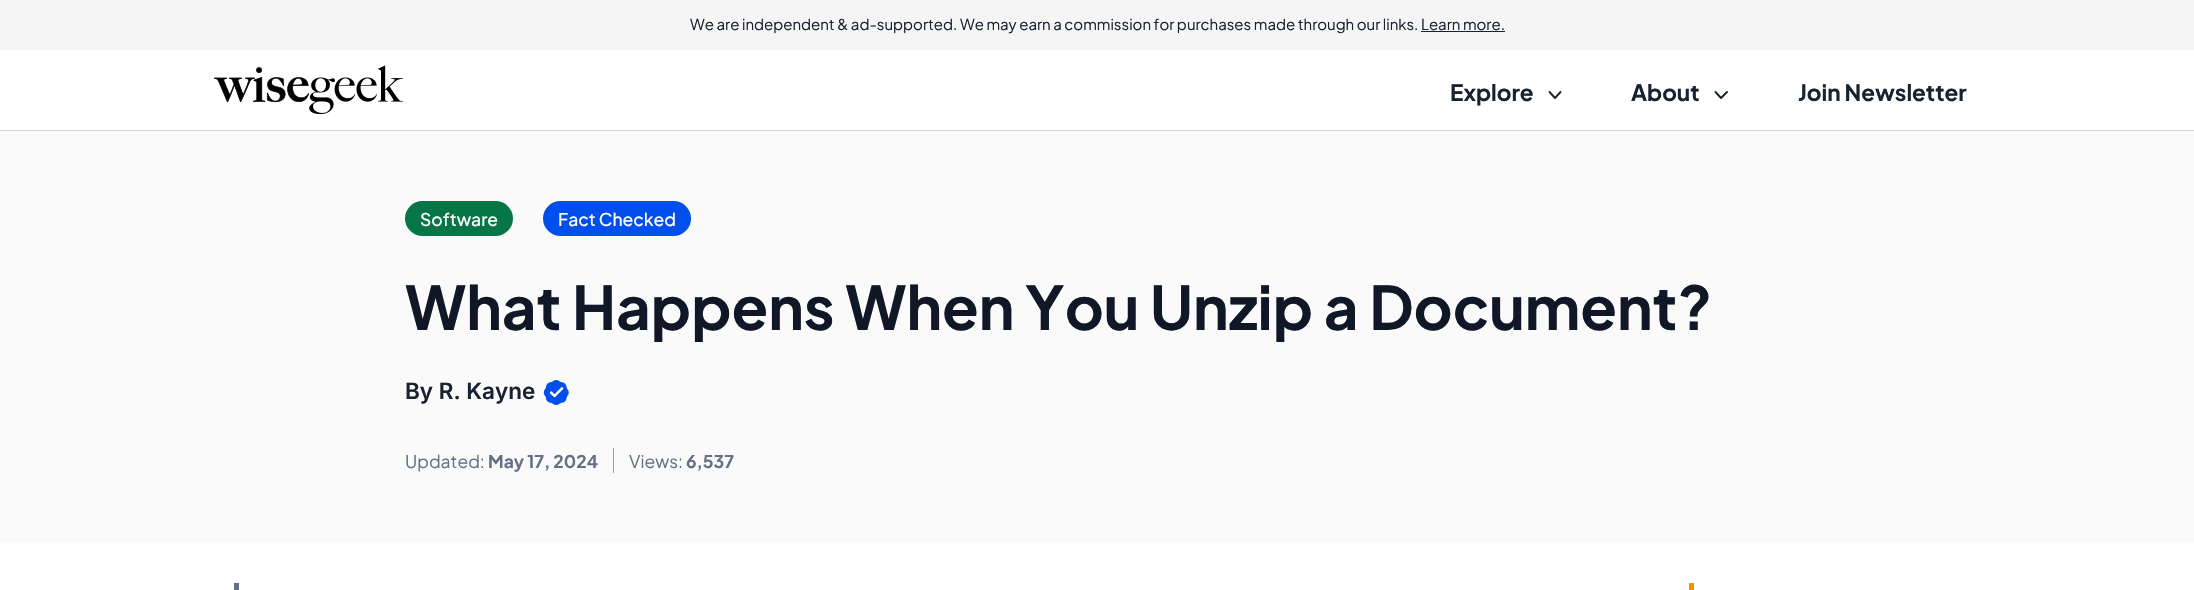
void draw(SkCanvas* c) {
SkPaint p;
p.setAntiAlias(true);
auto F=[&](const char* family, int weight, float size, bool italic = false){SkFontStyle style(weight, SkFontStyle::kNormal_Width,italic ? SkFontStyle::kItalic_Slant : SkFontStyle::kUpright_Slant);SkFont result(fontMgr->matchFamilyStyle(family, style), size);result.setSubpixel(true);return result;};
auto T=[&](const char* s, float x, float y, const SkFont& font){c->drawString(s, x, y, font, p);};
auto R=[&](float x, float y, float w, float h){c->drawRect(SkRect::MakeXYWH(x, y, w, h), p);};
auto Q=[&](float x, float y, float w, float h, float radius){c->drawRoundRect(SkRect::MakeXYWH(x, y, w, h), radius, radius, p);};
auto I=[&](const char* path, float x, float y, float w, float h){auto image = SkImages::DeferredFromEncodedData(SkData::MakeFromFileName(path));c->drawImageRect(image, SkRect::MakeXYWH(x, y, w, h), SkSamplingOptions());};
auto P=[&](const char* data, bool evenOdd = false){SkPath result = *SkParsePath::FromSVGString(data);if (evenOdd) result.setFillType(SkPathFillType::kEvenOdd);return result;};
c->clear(0xffffffff);
p.setColor(0xfff5f5f5);
R(0,0,2194,50);
auto f1 = F("Plus Jakarta Sans",400,15);
p.setColor(0xff182230);
T("We are independent & ad-supported. We may earn a commission for purchases made through our links. Learn more.",690,30,f1);
R(1421,31,84,1);
p.setColor(0xffd5d5d5);
R(0,130,2194,1);
I("1.png",214,65,190,50);
auto f2 = F("Plus Jakarta Sans",700,22.5);
p.setColor(0xff182230);
T("Explore",1450,101,f2);
p.setStroke(true);
p.setStrokeWidth(1.9);
p.setStrokeCap(SkPaint::kRound_Cap);
p.setStrokeJoin(SkPaint::kRound_Join);
c->drawPath(P("M1549.5 92l5.5 6l5.5-6"),p);
p.setStroke(false);
T("About",1631,101,f2);
p.setStroke(true);
c->drawPath(P("M1715.5 92l5.5 6l6-6"),p);
p.setStroke(false);
T("Join Newsletter",1798,101,f2);
p.setColor(0xfffafafa);
R(0,131,2194,412);
p.setColor(0xff067647);
Q(405,201,108,35,17.5);
auto f3 = F("Plus Jakarta Sans",500,17.5);
p.setColor(0xffffffff);
T("Software",420,226,f3);
p.setColor(0xff004eeb);
Q(543,201,148,35,17.5);
p.setColor(0xffffffff);
T("Fact Checked",558,226,f3);
auto f4 = F("Plus Jakarta Sans",700,60);
p.setColor(0xff101828);
T("What Happens When You Unzip a Document?",405,330,f4);
auto f5 = F("Inter",600,22.5);
p.setColor(0xff182230);
T("By R. Kayne",405,399,f5);
I("2.png",543,380,26,25);
auto f6 = F("Plus Jakarta Sans",400,17.5);
p.setColor(0xff667085);
T("Updated:",405,468,f6);
auto f7 = F("Plus Jakarta Sans",700,17.5);
T("May 17, 2024",488,468,f7);
p.setColor(0xff98a2b3);
R(613,448,1,25);
p.setColor(0xff667085);
T("Views:",629,468,f6);
T("6,537",686,468,f7);
R(234,583,5,7);
p.setColor(0xfff79009);
R(1689,583,5,7);
}
